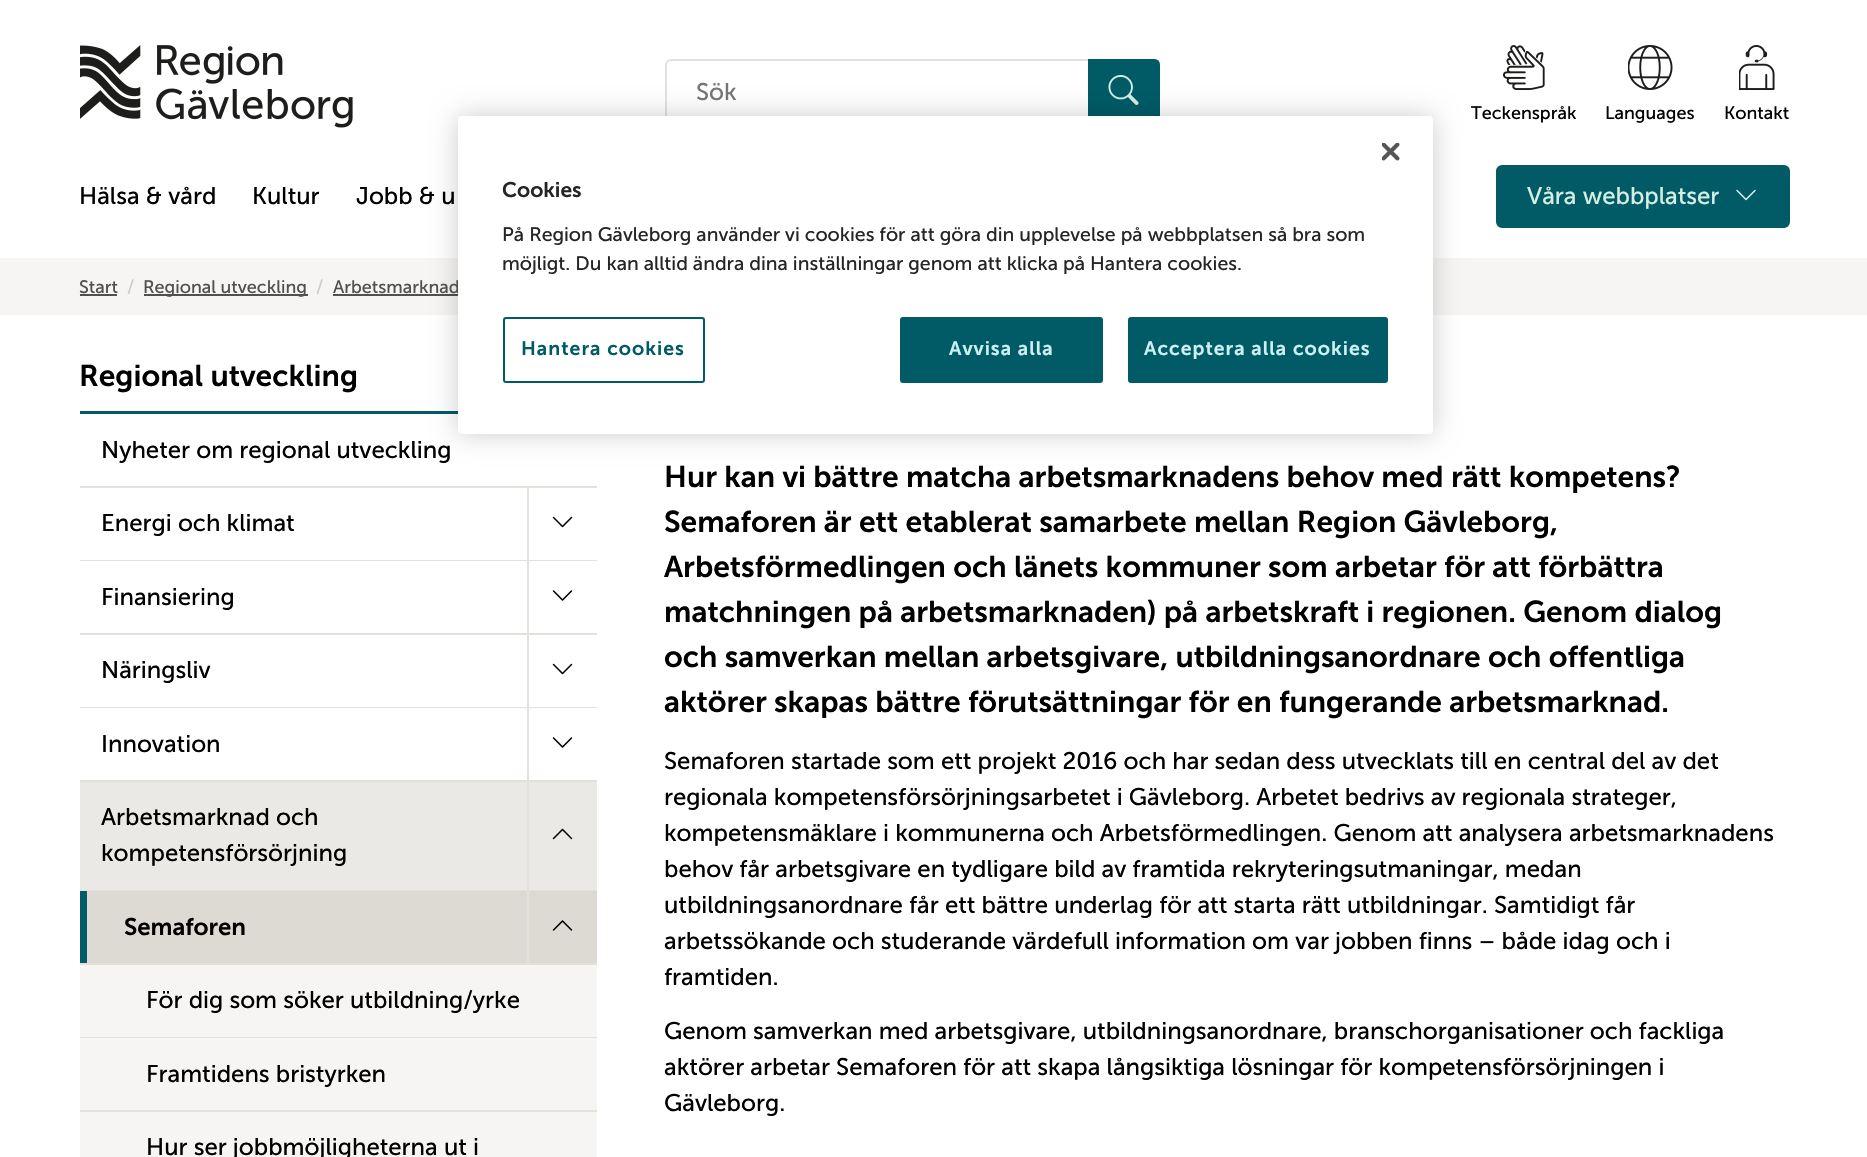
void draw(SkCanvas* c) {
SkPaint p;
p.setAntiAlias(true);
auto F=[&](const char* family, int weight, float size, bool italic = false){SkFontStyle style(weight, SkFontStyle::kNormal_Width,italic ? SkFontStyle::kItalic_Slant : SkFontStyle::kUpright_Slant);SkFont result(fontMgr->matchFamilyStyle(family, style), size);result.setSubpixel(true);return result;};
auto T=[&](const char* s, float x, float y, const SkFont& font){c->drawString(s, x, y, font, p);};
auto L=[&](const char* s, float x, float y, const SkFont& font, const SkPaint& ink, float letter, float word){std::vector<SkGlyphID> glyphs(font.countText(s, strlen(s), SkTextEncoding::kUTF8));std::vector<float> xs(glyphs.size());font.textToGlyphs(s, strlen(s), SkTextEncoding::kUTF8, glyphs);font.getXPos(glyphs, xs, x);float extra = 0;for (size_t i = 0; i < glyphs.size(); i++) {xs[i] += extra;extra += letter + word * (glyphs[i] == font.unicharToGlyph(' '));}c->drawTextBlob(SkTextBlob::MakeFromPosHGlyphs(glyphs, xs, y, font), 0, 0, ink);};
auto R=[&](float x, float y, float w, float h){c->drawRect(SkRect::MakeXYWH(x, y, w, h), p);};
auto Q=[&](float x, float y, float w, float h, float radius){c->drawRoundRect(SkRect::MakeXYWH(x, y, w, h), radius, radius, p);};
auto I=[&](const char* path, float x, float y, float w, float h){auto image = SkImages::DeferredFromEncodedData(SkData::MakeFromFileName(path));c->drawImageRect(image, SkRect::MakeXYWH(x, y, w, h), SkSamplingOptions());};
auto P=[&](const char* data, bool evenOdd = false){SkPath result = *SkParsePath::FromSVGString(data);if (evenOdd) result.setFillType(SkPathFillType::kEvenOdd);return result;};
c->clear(0xffffffff);
I("1.png",80,45,273,83);
p.setStroke(true);
p.setStrokeWidth(2);
p.setColor(0xffe4e1dc);
c->drawRoundRect(SkRect::MakeXYWH(666,60,493,67),5,5,p);
auto f1 = F("Museo Sans",400,24);
p.setStroke(false);
p.setColor(0xff757575);
T("Sök",696,100,f1);
p.setColor(0xff005b67);
c->drawPath(P("M1089 60h65c3 0 5 2 5 5v57c0 3-2 5-5 5h-65z"),p);
p.setStroke(true);
c->drawPath(P("M1089 60h65c3 0 5 2 5 5v57c0 3-2 5-5 5h-65z"),p);
I("2.png",1108,75,31,30);
I("3.png",1503,45,42,45);
auto f2 = F("Museo Sans",400,18);
p.setStroke(false);
p.setColor(0xff000000);
T("Teckenspråk",1471,119,f2);
I("4.png",1628,45,45,45);
T("Languages",1605,119,f2);
I("5.png",1739,45,36,45);
T("Kontakt",1724,119,f2);
T("Hälsa & vård",79,204,f1);
T("Kultur",252,204,f1);
T("Jobb & u",356,204,f1);
p.setColor(0xff005b67);
c->drawRoundRect(SkRect::MakeXYWH(1497,166,292,61),5,5,p);
p.setStroke(true);
c->drawRoundRect(SkRect::MakeXYWH(1497,166,292,61),5,5,p);
p.setStroke(false);
p.setColor(0xffd4eee2);
T("Våra webbplatser",1527,204,f1);
I("6.png",1736,189,20,12);
p.setColor(0xfff6f5f3);
R(0,258,1867,57);
p.setColor(0xff505050);
R(333,294,125,2);
p.setColor(0xff005b67);
R(80,411,378,3);
p.setColor(0x33000000);
p.setMaskFilter(SkMaskFilter::MakeBlur(kNormal_SkBlurStyle, 13.5));
c->drawRoundRect(SkRect::MakeXYWH(458,116,975,318),4,4,p);
p.setMaskFilter(nullptr);
p.setColor(0xff505050);
T("Arbetsmarknad",333,293,f2);
p.setColor(0xffffffff);
Q(458,116,975,318,4);
I("7.png",1382,143,18,18);
auto f3 = F("Museo Sans",600,21);
p.setColor(0xff252525);
T("Cookies",502,197,f3);
auto f4 = F("Museo Sans",400,19.5);
T("På Region Gävleborg använder vi cookies för att göra din upplevelse på webbplatsen så bra som",502,241,f4);
T("möjligt. Du kan alltid ändra dina inställningar genom att klicka på Hantera cookies.",502,270,f4);
p.setStroke(true);
p.setColor(0xff005b67);
c->drawRoundRect(SkRect::MakeXYWH(504,318,200,64),2,2,p);
auto f5 = F("Museo Sans",600,19.5);
p.setStroke(false);
L("Hantera cookies",521,355,f5,p,1,0);
c->drawRoundRect(SkRect::MakeXYWH(901,318,201,64),2,2,p);
p.setStroke(true);
c->drawRoundRect(SkRect::MakeXYWH(901,318,201,64),2,2,p);
p.setStroke(false);
p.setColor(0xffccf0f2);
L("Avvisa alla",949,355,f5,p,1,0);
p.setColor(0xff005b67);
c->drawRoundRect(SkRect::MakeXYWH(1129,318,258,64),2,2,p);
p.setStroke(true);
c->drawRoundRect(SkRect::MakeXYWH(1129,318,258,64),2,2,p);
p.setStroke(false);
p.setColor(0xffccf0f2);
L("Acceptera alla cookies",1144,355,f5,p,1,0);
p.setColor(0xff505050);
T("Start",79,293,f2);
R(80,294,37,2);
p.setColor(0xffcccccc);
T("/",127,293,f2);
p.setColor(0xff505050);
R(144,294,164,2);
T("Regional utveckling",143,293,f2);
p.setColor(0xffcccccc);
T("/",316,293,f2);
auto f6 = F("Museo Sans",600,30);
p.setColor(0xff000000);
T("Regional utveckling",79,386,f6);
p.setColor(0xffe4e1dc);
R(80,486,517,2);
p.setColor(0xff000000);
T("Nyheter om regional utveckling",101,458,f1);
p.setColor(0xffe4e1dc);
R(80,560,517,1);
p.setColor(0xff000000);
T("Energi och klimat",101,531,f1);
p.setColor(0xffe4e1dc);
R(527,488,2,72);
I("8.png",552,516,21,12);
R(80,633,517,2);
p.setColor(0xff000000);
T("Finansiering",101,605,f1);
p.setColor(0xffe4e1dc);
R(527,561,2,72);
I("9.png",552,590,21,11);
R(80,707,517,1);
p.setColor(0xff000000);
T("Näringsliv",101,678,f1);
p.setColor(0xffe4e1dc);
R(527,635,2,72);
I("8.png",552,663,21,12);
R(80,780,517,2);
p.setColor(0xff000000);
T("Innovation",101,752,f1);
p.setColor(0xffe4e1dc);
R(527,708,2,72);
I("9.png",552,737,21,11);
p.setColor(0xffebe9e5);
R(80,782,517,108);
p.setColor(0xffe4e1dc);
R(80,890,517,1);
p.setColor(0xff000000);
T("Arbetsmarknad och",101,825,f1);
T("kompetensförsörjning",101,861,f1);
p.setColor(0xffe4e1dc);
R(527,782,2,108);
I("10.png",552,828,21,12);
p.setColor(0xfff6f5f3);
R(80,965,517,192);
p.setColor(0xffdddad3);
R(87,891,510,72);
p.setColor(0xffe4e1dc);
R(80,963,517,2);
p.setColor(0xff005b67);
R(80,891,7,72);
auto f7 = F("Museo Sans",600,24);
p.setColor(0xff000000);
T("Semaforen",124,935,f7);
p.setColor(0xffe4e1dc);
R(527,891,2,72);
I("11.png",552,920,21,11);
R(80,1037,517,1);
p.setColor(0xff000000);
T("För dig som söker utbildning/yrke",146,1008,f1);
p.setColor(0xffe4e1dc);
R(80,1110,517,2);
p.setColor(0xff000000);
T("Framtidens bristyrken",146,1082,f1);
T("Hur ser jobbmöjligheterna ut i",146,1155,f1);
T("Hur kan vi bättre matcha arbetsmarknadens behov med rätt kompetens?",664,487,f6);
T("Semaforen är ett etablerat samarbete mellan Region Gävleborg,",664,532,f6);
T("Arbetsförmedlingen och länets kommuner som arbetar för att förbättra",664,577,f6);
T("matchningen på arbetsmarknaden) på arbetskraft i regionen. Genom dialog",664,622,f6);
T("och samverkan mellan arbetsgivare, utbildningsanordnare och offentliga",664,667,f6);
T("aktörer skapas bättre förutsättningar för en fungerande arbetsmarknad.",664,712,f6);
T("Semaforen startade som ett projekt 2016 och har sedan dess utvecklats till en central del av det",664,769,f1);
T("regionala kompetensförsörjningsarbetet i Gävleborg. Arbetet bedrivs av regionala strateger,",664,805,f1);
T("kompetensmäklare i kommunerna och Arbetsförmedlingen. Genom att analysera arbetsmarknadens",664,841,f1);
T("behov får arbetsgivare en tydligare bild av framtida rekryteringsutmaningar, medan",664,877,f1);
T("utbildningsanordnare får ett bättre underlag för att starta rätt utbildningar. Samtidigt får",664,913,f1);
T("arbetssökande och studerande värdefull information om var jobben finns – både idag och i",664,949,f1);
T("framtiden.",664,985,f1);
T("Genom samverkan med arbetsgivare, utbildningsanordnare, branschorganisationer och fackliga",664,1039,f1);
T("aktörer arbetar Semaforen för att skapa långsiktiga lösningar för kompetensförsörjningen i",664,1075,f1);
T("Gävleborg.",664,1111,f1);
}
